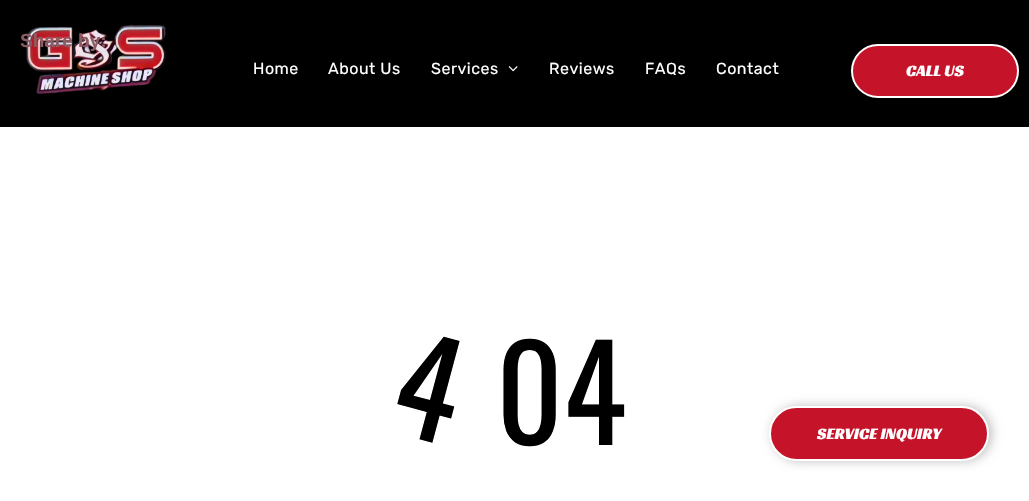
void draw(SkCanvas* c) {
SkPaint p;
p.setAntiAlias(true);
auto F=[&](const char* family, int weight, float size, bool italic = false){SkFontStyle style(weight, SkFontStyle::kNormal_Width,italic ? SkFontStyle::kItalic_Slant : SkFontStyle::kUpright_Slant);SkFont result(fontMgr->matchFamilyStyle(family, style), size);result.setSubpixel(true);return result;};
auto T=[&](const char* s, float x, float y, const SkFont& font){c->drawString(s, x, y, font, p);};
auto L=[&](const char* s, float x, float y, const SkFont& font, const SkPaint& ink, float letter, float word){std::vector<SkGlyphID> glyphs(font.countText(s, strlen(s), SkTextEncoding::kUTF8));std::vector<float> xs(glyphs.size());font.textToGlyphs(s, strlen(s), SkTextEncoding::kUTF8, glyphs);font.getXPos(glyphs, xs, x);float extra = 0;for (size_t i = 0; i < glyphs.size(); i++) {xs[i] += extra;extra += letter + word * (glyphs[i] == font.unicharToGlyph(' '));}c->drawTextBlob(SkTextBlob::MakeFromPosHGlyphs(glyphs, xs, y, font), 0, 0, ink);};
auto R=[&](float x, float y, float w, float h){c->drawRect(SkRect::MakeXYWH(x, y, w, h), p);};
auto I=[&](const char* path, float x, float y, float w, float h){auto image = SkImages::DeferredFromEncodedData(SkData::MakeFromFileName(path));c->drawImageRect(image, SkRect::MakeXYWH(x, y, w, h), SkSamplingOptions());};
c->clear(0xffffffff);
p.setColor(0xff000000);
R(0,0,1029,127);
I("1.png",26,24,141,70);
auto f1 = F("Liberation Sans",700,19);
p.setColor(0xff8c5b63);
T("Share by:",20,47,f1);
auto f2 = F("Rubik",400,16);
p.setColor(0xffffffff);
L("Home",253,74,f2,p,.5,0);
L("About Us",328,74,f2,p,.5,0);
L("Services",431,74,f2,p,.5,0);
I("2.png",508,66,10,6);
L("Reviews",549,74,f2,p,.5,0);
L("FAQs",645,74,f2,p,.5,0);
L("Contact",716,74,f2,p,.5,0);
p.setColor(0xffc51329);
c->drawRoundRect(SkRect::MakeXYWH(852,45,166,52),26,26,p);
p.setStroke(true);
p.setStrokeWidth(2);
p.setColor(0xffffffff);
c->drawRoundRect(SkRect::MakeXYWH(852,45,166,52),26,26,p);
auto f3 = F("Racing Sans One",400,16);
p.setStroke(false);
T("CALL US",906,76,f3);
auto f4 = F("Oswald",400,130);
p.setColor(0xff000000);
c->save();
c->rotate(15,385,430);
T("4",385,430,f4);
c->restore();
T("04",496,445,f4);
p.setColor(0x40000000);
p.setMaskFilter(SkMaskFilter::MakeBlur(kNormal_SkBlurStyle, 5.5));
c->drawRoundRect(SkRect::MakeXYWH(772,406,220,55),27.5,27.5,p);
p.setMaskFilter(nullptr);
p.setColor(0xffc51329);
c->drawRoundRect(SkRect::MakeXYWH(770,407,218,53),26.5,26.5,p);
p.setStroke(true);
p.setColor(0xffffffff);
c->drawRoundRect(SkRect::MakeXYWH(770,407,218,53),26.5,26.5,p);
p.setStroke(false);
T("SERVICE INQUIRY",817,439,f3);
}
